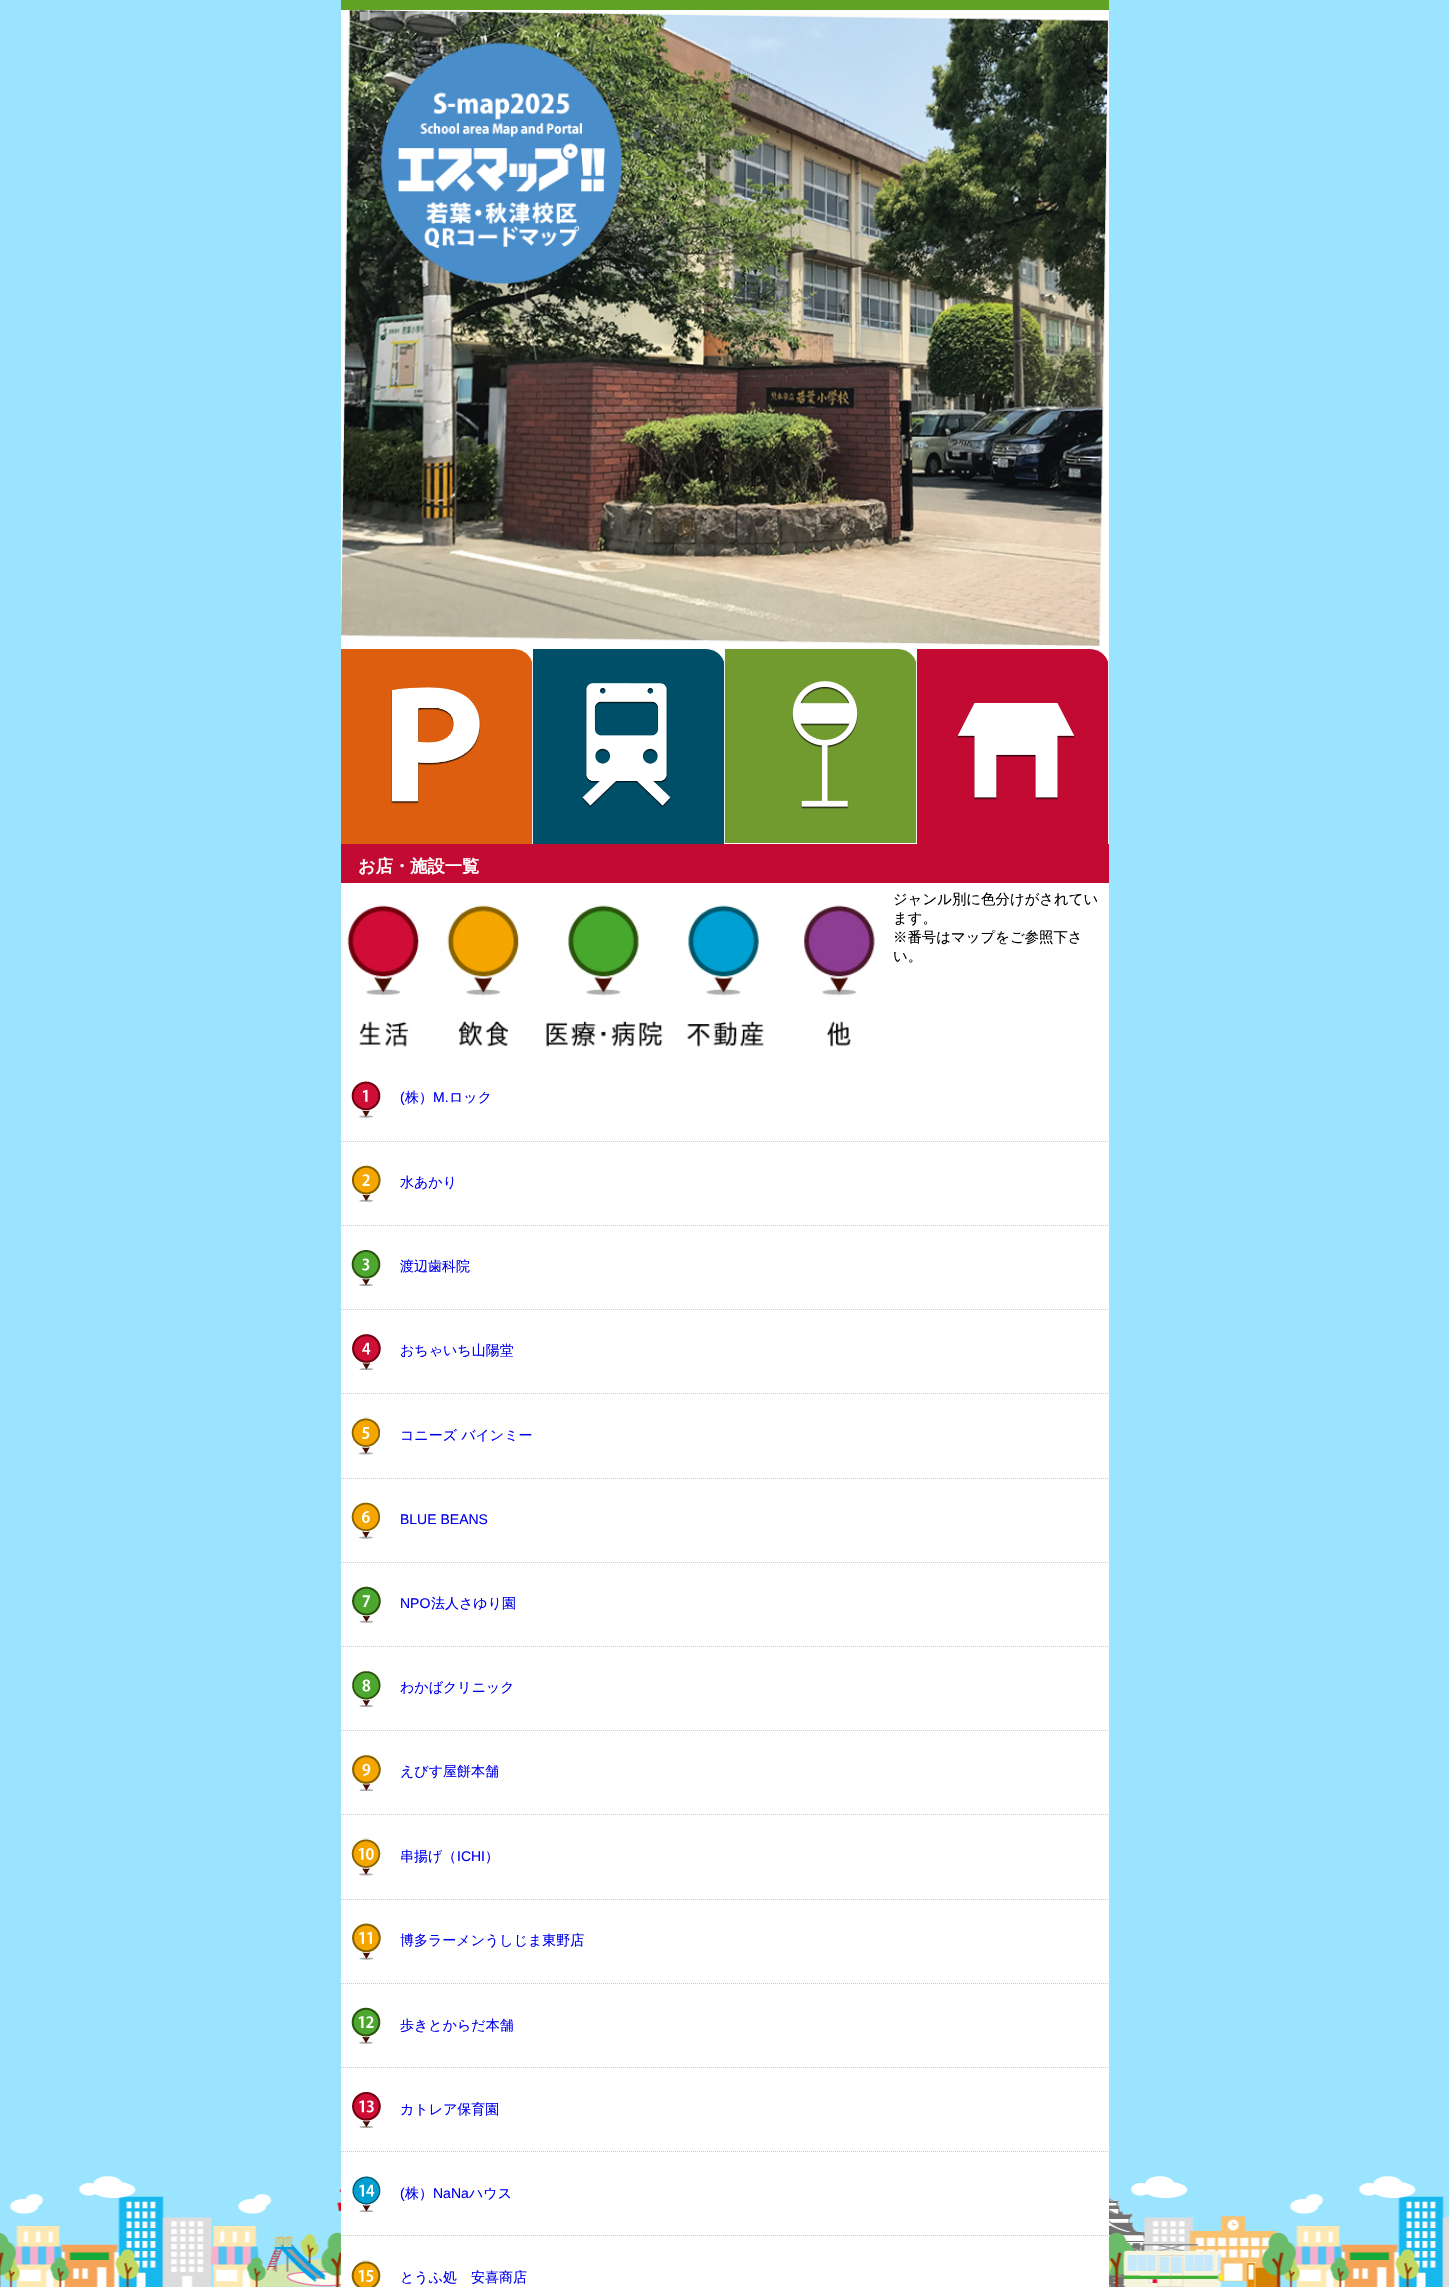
void draw(SkCanvas* c) {
SkPaint p;
p.setAntiAlias(true);
auto F=[&](const char* family, int weight, float size, bool italic = false){SkFontStyle style(weight, SkFontStyle::kNormal_Width,italic ? SkFontStyle::kItalic_Slant : SkFontStyle::kUpright_Slant);SkFont result(fontMgr->matchFamilyStyle(family, style), size);result.setSubpixel(true);return result;};
auto T=[&](const char* s, float x, float y, const SkFont& font){c->drawString(s, x, y, font, p);};
auto R=[&](float x, float y, float w, float h){c->drawRect(SkRect::MakeXYWH(x, y, w, h), p);};
auto I=[&](const char* path, float x, float y, float w, float h){auto image = SkImages::DeferredFromEncodedData(SkData::MakeFromFileName(path));c->drawImageRect(image, SkRect::MakeXYWH(x, y, w, h), SkSamplingOptions());};
auto P=[&](const char* data, bool evenOdd = false){SkPath result = *SkParsePath::FromSVGString(data);if (evenOdd) result.setFillType(SkPathFillType::kEvenOdd);return result;};
c->clear(0xff9ae4ff);
I("1.png",0,2173,1449,114);
p.setColor(0xff5fa224);
R(341,0,768,10);
p.setColor(0xffffffff);
R(341,646,768,1641);
I("2.png",341,10,768,636);
p.setColor(0xffdd5e0f);
c->drawPath(P("M341 649h173c10.5 0 19 8.5 19 19v176h-192z"),p);
p.setColor(0xffefefef);
R(532,659,1,185);
I("3.png",391,687,90,117);
p.setColor(0xff004f69);
c->drawPath(P("M533 649h173c10.5 0 19 8.5 19 19v176h-192z"),p);
p.setColor(0xffefefef);
R(724,659,1,185);
I("4.png",582,683,89,125);
p.setColor(0xff719a2f);
c->drawPath(P("M725 649h173c10.5 0 19 8.5 19 19v175h-192z"),p);
p.setColor(0xffefefef);
R(916,659,1,184);
I("5.png",792,681,66,128);
p.setColor(0xffc30a32);
c->drawPath(P("M917 649h173c10.5 0 19 8.5 19 19v176h-192z"),p);
p.setColor(0xffefefef);
R(1108,659,1,185);
I("6.png",957,702,118,98);
p.setColor(0xffc30a32);
R(341,844,768,39);
auto f1 = F("WenQuanYi Zen Hei",700,17.25);
p.setColor(0xffffffff);
T("お店・施設一覧",358,872,f1);
I("7.png",347,905,528,142);
auto f2 = F("WenQuanYi Zen Hei",500,14.4);
p.setColor(0xff000000);
T("ジャンル別に色分けがされてい",893,904,f2);
T("ます。",893,923,f2);
T("※番号はマップをご参照下さ",893,942,f2);
T("い。",893,961,f2);
p.setStroke(true);
p.setStrokeWidth(1);
p.setColor(0xffcccccc);
p.setPathEffect(SkDashPathEffect::Make({{1,1}}, 0));
c->drawPath(P("M341 1141.5h768"),p);
p.setPathEffect(nullptr);
I("8.png",351,1081,30,37);
auto f3 = F("Liberation Sans",400,14);
p.setStroke(false);
p.setColor(0xff0000ee);
T("(",400,1102,f3);
auto f4 = F("WenQuanYi Zen Hei",500,14);
T("株）",405,1102,f4);
T("M.",433,1102,f3);
T("ロック",449,1102,f4);
p.setStroke(true);
p.setColor(0xffcccccc);
p.setPathEffect(SkDashPathEffect::Make({{1,1}}, 0));
c->drawPath(P("M341 1225.5h768"),p);
p.setPathEffect(nullptr);
I("9.png",352,1165,29,37);
p.setStroke(false);
p.setColor(0xff0000ee);
T("水あかり",400,1187,f4);
p.setStroke(true);
p.setColor(0xffcccccc);
p.setPathEffect(SkDashPathEffect::Make({{1,1}}, 0));
c->drawPath(P("M341 1309.5h768"),p);
p.setPathEffect(nullptr);
I("10.png",350,1250,31,36);
p.setStroke(false);
p.setColor(0xff0000ee);
T("渡辺歯科院",400,1271,f4);
p.setStroke(true);
p.setColor(0xffcccccc);
p.setPathEffect(SkDashPathEffect::Make({{1,1}}, 0));
c->drawPath(P("M341 1393.5h768"),p);
p.setPathEffect(nullptr);
I("11.png",352,1334,29,36);
p.setStroke(false);
p.setColor(0xff0000ee);
T("おちゃいち山陽堂",400,1355,f4);
p.setStroke(true);
p.setColor(0xffcccccc);
p.setPathEffect(SkDashPathEffect::Make({{1,1}}, 0));
c->drawPath(P("M341 1478.5h768"),p);
p.setPathEffect(nullptr);
I("12.png",351,1417,29,38);
p.setStroke(false);
p.setColor(0xff0000ee);
T("コニーズ バインミー",400,1440,f4);
p.setStroke(true);
p.setColor(0xffcccccc);
p.setPathEffect(SkDashPathEffect::Make({{1,1}}, 0));
c->drawPath(P("M341 1562.5h768"),p);
p.setPathEffect(nullptr);
I("13.png",351,1502,29,37);
p.setStroke(false);
p.setColor(0xff0000ee);
T("BLUE BEANS",400,1524,f3);
p.setStroke(true);
p.setColor(0xffcccccc);
p.setPathEffect(SkDashPathEffect::Make({{1,1}}, 0));
c->drawPath(P("M341 1646.5h768"),p);
p.setPathEffect(nullptr);
I("14.png",352,1586,29,37);
p.setStroke(false);
p.setColor(0xff0000ee);
T("NPO",400,1608,f3);
T("法人さゆり園",431,1608,f4);
p.setStroke(true);
p.setColor(0xffcccccc);
p.setPathEffect(SkDashPathEffect::Make({{1,1}}, 0));
c->drawPath(P("M341 1730.5h768"),p);
p.setPathEffect(nullptr);
I("15.png",352,1671,29,36);
p.setStroke(false);
p.setColor(0xff0000ee);
T("わかばクリニック",400,1692,f4);
p.setStroke(true);
p.setColor(0xffcccccc);
p.setPathEffect(SkDashPathEffect::Make({{1,1}}, 0));
c->drawPath(P("M341 1814.5h768"),p);
p.setPathEffect(nullptr);
I("16.png",348,1755,33,36);
p.setStroke(false);
p.setColor(0xff0000ee);
T("えびす屋餅本舗",400,1776,f4);
p.setStroke(true);
p.setColor(0xffcccccc);
p.setPathEffect(SkDashPathEffect::Make({{1,1}}, 0));
c->drawPath(P("M341 1899.5h768"),p);
p.setPathEffect(nullptr);
I("17.png",351,1838,30,38);
p.setStroke(false);
p.setColor(0xff0000ee);
T("串揚げ（",400,1861,f4);
T("ICHI",457,1861,f3);
T("）",485,1861,f4);
p.setStroke(true);
p.setColor(0xffcccccc);
p.setPathEffect(SkDashPathEffect::Make({{1,1}}, 0));
c->drawPath(P("M341 1983.5h768"),p);
p.setPathEffect(nullptr);
I("18.png",352,1923,29,37);
p.setStroke(false);
p.setColor(0xff0000ee);
T("博多ラーメンうしじま東野店",400,1945,f4);
p.setStroke(true);
p.setColor(0xffcccccc);
p.setPathEffect(SkDashPathEffect::Make({{1,1}}, 0));
c->drawPath(P("M341 2067.5h768"),p);
p.setPathEffect(nullptr);
I("19.png",351,2007,30,37);
p.setStroke(false);
p.setColor(0xff0000ee);
T("歩きとからだ本舗",400,2030,f4);
p.setStroke(true);
p.setColor(0xffcccccc);
p.setPathEffect(SkDashPathEffect::Make({{1,1}}, 0));
c->drawPath(P("M341 2151.5h768"),p);
p.setPathEffect(nullptr);
I("20.png",352,2092,29,36);
p.setStroke(false);
p.setColor(0xff0000ee);
T("カトレア保育園",400,2114,f4);
p.setStroke(true);
p.setColor(0xffcccccc);
p.setPathEffect(SkDashPathEffect::Make({{1,1}}, 0));
c->drawPath(P("M341 2235.5h768"),p);
p.setPathEffect(nullptr);
I("21.png",352,2176,29,36);
p.setStroke(false);
p.setColor(0xff0000ee);
T("(",400,2198,f3);
T("株）",405,2198,f4);
T("NaNa",433,2198,f3);
T("ハウス",469,2198,f4);
I("22.png",351,2260,30,27);
T("とうふ処　安喜商店",400,2282,f4);
}
